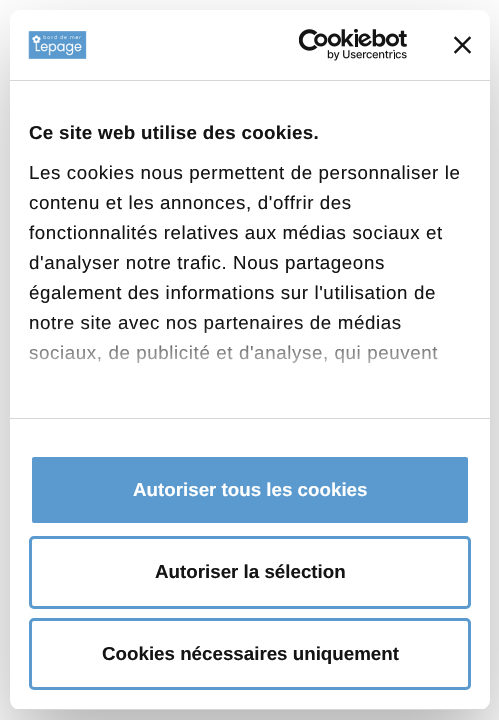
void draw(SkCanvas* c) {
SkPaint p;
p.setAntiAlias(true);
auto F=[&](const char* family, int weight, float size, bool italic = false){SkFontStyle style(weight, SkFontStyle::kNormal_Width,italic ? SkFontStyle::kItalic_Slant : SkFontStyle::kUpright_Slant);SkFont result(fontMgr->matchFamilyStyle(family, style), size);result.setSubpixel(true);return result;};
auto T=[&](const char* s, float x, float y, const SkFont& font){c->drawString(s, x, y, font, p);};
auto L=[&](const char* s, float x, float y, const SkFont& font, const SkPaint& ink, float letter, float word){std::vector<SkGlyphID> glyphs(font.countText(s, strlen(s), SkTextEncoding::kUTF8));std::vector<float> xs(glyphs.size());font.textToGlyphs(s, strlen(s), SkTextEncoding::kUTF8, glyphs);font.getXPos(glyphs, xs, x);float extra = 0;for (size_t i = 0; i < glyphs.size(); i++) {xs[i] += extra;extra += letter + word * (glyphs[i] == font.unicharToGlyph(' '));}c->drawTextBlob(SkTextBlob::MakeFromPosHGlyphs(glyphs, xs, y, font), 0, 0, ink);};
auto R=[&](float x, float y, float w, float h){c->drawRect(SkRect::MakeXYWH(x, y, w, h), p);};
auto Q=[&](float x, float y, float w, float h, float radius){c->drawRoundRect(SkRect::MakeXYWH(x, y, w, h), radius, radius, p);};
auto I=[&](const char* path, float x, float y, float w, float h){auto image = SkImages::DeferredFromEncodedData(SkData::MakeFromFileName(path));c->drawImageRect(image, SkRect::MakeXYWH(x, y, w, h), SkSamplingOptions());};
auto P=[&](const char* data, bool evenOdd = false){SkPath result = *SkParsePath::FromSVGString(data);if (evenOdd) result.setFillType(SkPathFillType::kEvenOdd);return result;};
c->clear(0xffffffff);
p.setColor(0x4d000000);
p.setMaskFilter(SkMaskFilter::MakeBlur(kNormal_SkBlurStyle, 42.5));
c->drawRoundRect(SkRect::MakeXYWH(10,50,480,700),10,10,p);
p.setMaskFilter(nullptr);
p.setColor(0xffffffff);
Q(10,10,480,700,10);
p.setColor(0xffd6d6d6);
R(10,80,480,1);
I("1.png",28,31,59,28);
I("2.png",299,29,108,32);
I("3.png",454,36,17,18);
R(10,418,480,1);
auto f1 = F("Liberation Sans",700,18.75);
p.setColor(0xff141414);
L("Ce site web utilise des cookies.",29,139,f1,p,.3,0);
auto f2 = F("Liberation Sans",400,18.75);
L("Les cookies nous permettent de personnaliser le",29,179,f2,p,.6,0);
L("contenu et les annonces, d'offrir des",29,209,f2,p,.6,0);
L("fonctionnalités relatives aux médias sociaux et",29,239,f2,p,.6,0);
L("d'analyser notre trafic. Nous partageons",29,269,f2,p,.6,0);
L("également des informations sur l'utilisation de",29,299,f2,p,.6,0);
L("notre site avec nos partenaires de médias",29,329,f2,p,.6,0);
L("sociaux, de publicité et d'analyse, qui peuvent",29,359,f2,p,.6,0);
{
const SkColor colors[] = {0xffffffff,0xccffffff,0x00ffffff};
const float stops[] = {0,.5,1};
const SkPoint ends[] = {{242,418}, {242,324}};
p.setShader(SkGradientShader::MakeLinear(ends, colors, stops, 3, SkTileMode::kClamp));
p.setAlpha(255);
}
R(29,325,410,38);
c->save();
c->clipPath(P("M20 10h460c5.5 0 10 4.5 10 10v680c0 5.5-4.5 10-10 10h-460c-5.5 0-10-4.5-10-10v-680c0-5.5 4.5-10 10-10z"),true);
p.setShader(nullptr);
p.setColor(0xffd6d6d6);
R(10,709,480,1);
c->restore();
p.setColor(0xff5a9ace);
c->drawRoundRect(SkRect::MakeXYWH(30.5,455.5,439,69),3.5,3.5,p);
p.setStroke(true);
p.setStrokeWidth(3);
p.setColor(0xffffffff);
c->drawRoundRect(SkRect::MakeXYWH(30.5,455.5,439,69),3.5,3.5,p);
p.setStroke(false);
T("Autoriser tous les cookies",133,496,f1);
p.setStroke(true);
p.setColor(0xff5a9ace);
c->drawRoundRect(SkRect::MakeXYWH(30.5,537.5,439,70),3.5,3.5,p);
p.setStroke(false);
p.setColor(0xff141414);
T("Autoriser la sélection",155,578,f1);
p.setStroke(true);
p.setColor(0xff5a9ace);
c->drawRoundRect(SkRect::MakeXYWH(30.5,619.5,439,69),3.5,3.5,p);
p.setStroke(false);
p.setColor(0xff141414);
T("Cookies nécessaires uniquement",102,660,f1);
}
